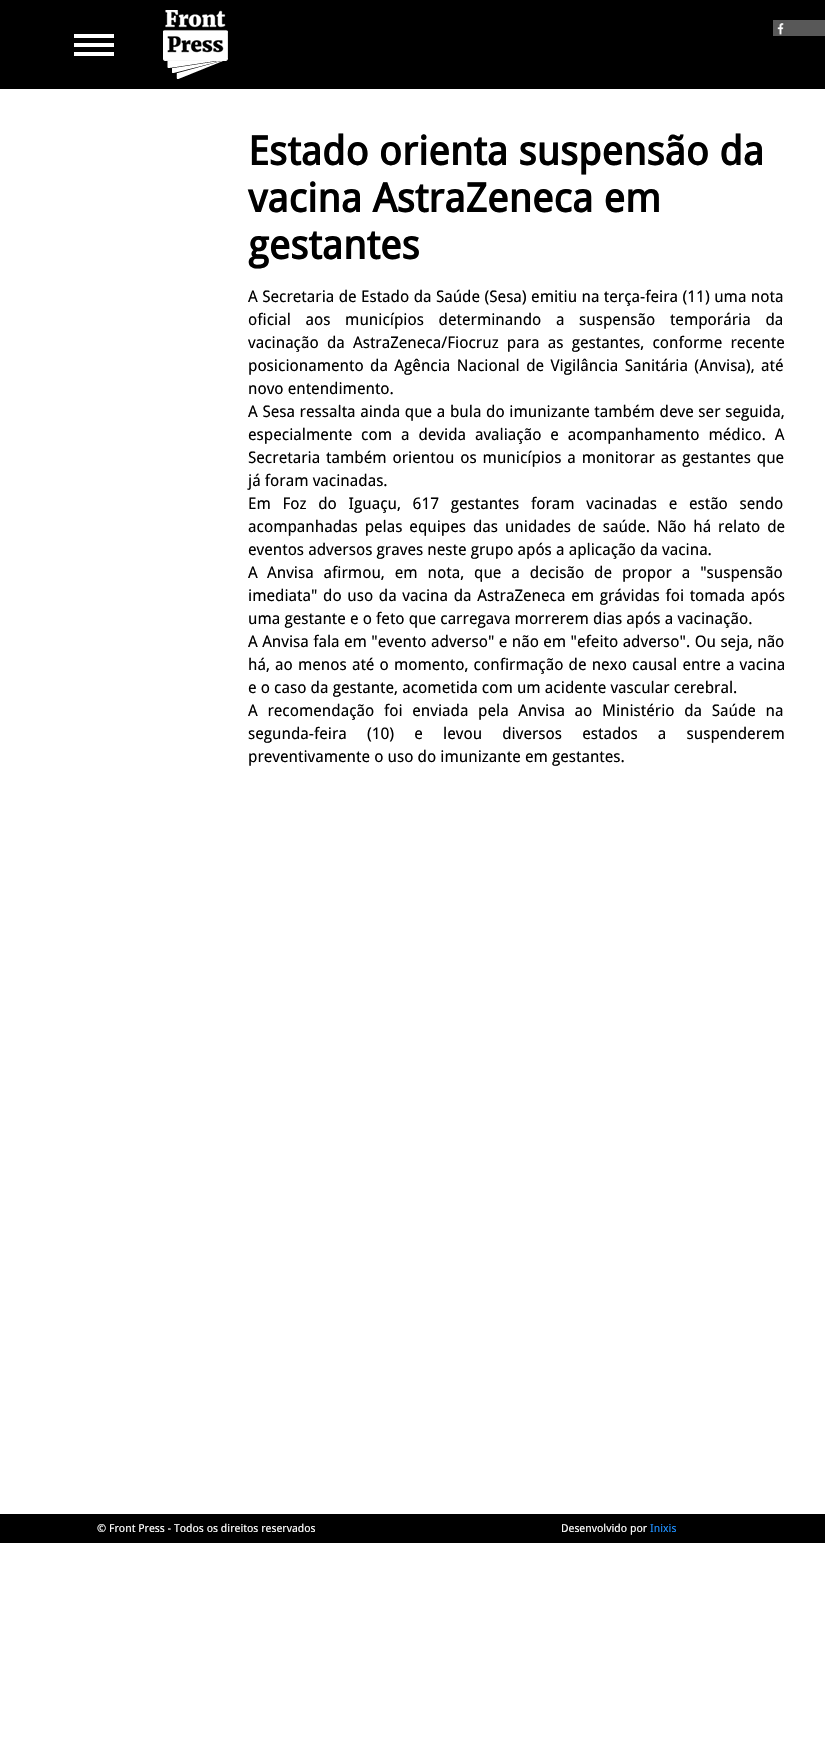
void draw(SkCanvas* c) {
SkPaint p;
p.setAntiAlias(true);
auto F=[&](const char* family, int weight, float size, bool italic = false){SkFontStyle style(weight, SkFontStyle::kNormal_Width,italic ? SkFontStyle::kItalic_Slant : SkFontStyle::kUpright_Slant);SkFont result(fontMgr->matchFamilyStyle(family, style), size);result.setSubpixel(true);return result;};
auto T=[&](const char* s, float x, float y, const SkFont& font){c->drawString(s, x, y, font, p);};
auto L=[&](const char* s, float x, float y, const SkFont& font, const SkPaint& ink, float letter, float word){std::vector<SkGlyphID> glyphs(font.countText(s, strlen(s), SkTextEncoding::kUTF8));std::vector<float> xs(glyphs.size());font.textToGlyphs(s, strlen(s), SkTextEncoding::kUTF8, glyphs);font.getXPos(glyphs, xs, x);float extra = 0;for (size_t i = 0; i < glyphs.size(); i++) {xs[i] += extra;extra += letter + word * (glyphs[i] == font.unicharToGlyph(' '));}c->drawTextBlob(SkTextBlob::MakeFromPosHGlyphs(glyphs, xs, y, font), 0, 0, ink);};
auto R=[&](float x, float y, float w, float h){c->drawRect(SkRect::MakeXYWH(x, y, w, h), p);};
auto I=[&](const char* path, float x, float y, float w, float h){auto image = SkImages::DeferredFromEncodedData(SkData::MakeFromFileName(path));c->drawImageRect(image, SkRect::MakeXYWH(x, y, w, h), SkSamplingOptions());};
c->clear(0xffffffff);
p.setColor(0xff000000);
R(0,0,825,89);
I("1.png",163,10,65,69);
I("2.png",773,20,52,16);
p.setColor(0xffffffff);
R(74,34,40,4);
R(74,43,40,4);
R(74,52,40,4);
auto f1 = F("Droid Sans",700,40);
p.setColor(0xff000000);
T("Estado orienta suspensão da",248,165,f1);
T("vacina AstraZeneca em",248,212,f1);
T("gestantes",248,259,f1);
auto f2 = F("Droid Sans",400,16);
L("A Secretaria de Estado da Saúde (Sesa) emitiu na terça-feira (11) uma nota",248,302,f2,p,0,.25);
L("oficial aos municípios determinando a suspensão temporária da",248,325,f2,p,0,10.5);
L("vacinação da AstraZeneca/Fiocruz para as gestantes, conforme recente",248,348,f2,p,0,4);
L("posicionamento da Agência Nacional de Vigilância Sanitária (Anvisa), até",248,371,f2,p,0,2.25);
T("novo entendimento.",248,394,f2);
L("A Sesa ressalta ainda que a bula do imunizante também deve ser seguida,",248,417,f2,p,0,.5);
L("especialmente com a devida avaliação e acompanhamento médico. A",248,440,f2,p,0,4.75);
L("Secretaria também orientou os municípios a monitorar as gestantes que",248,463,f2,p,0,1.75);
T("já foram vacinadas.",248,486,f2);
L("Em Foz do Iguaçu, 617 gestantes foram vacinadas e estão sendo",248,509,f2,p,0,7.5);
L("acompanhadas pelas equipes das unidades de saúde. Não há relato de",248,532,f2,p,0,2.75);
T("eventos adversos graves neste grupo após a aplicação da vacina.",248,555,f2);
T("A",248,578,f2);
L("Anvisa afirmou, em nota, que a decisão de propor a \"suspensão",267,578,f2,p,0,5.75);
L("imediata\" do uso da vacina da AstraZeneca em grávidas foi tomada após",248,601,f2,p,0,1.5);
T("uma gestante e o feto que carregava morrerem dias após a vacinação.",248,624,f2);
L("A Anvisa fala em \"evento adverso\" e não em \"efeito adverso\". Ou seja, não",248,647,f2,p,0,.25);
L("há, ao menos até o momento, confirmação de nexo causal entre a vacina",248,670,f2,p,0,1);
T("e o caso da gestante, acometida com um acidente vascular cerebral.",248,693,f2);
L("A recomendação foi enviada pela Anvisa ao Ministério da Saúde na",248,716,f2,p,0,5.5);
L("segunda-feira (10) e levou diversos estados a suspenderem",248,739,f2,p,0,16);
T("preventivamente o uso do imunizante em gestantes.",248,762,f2);
R(0,1514,825,29);
auto f3 = F("Droid Sans",400,11);
p.setColor(0xffffffff);
T("© Front Press - Todos os direitos reservados",97,1532,f3);
T("Desenvolvido por",561,1532,f3);
p.setColor(0xff1e90ff);
T("Inixis",650,1532,f3);
}
